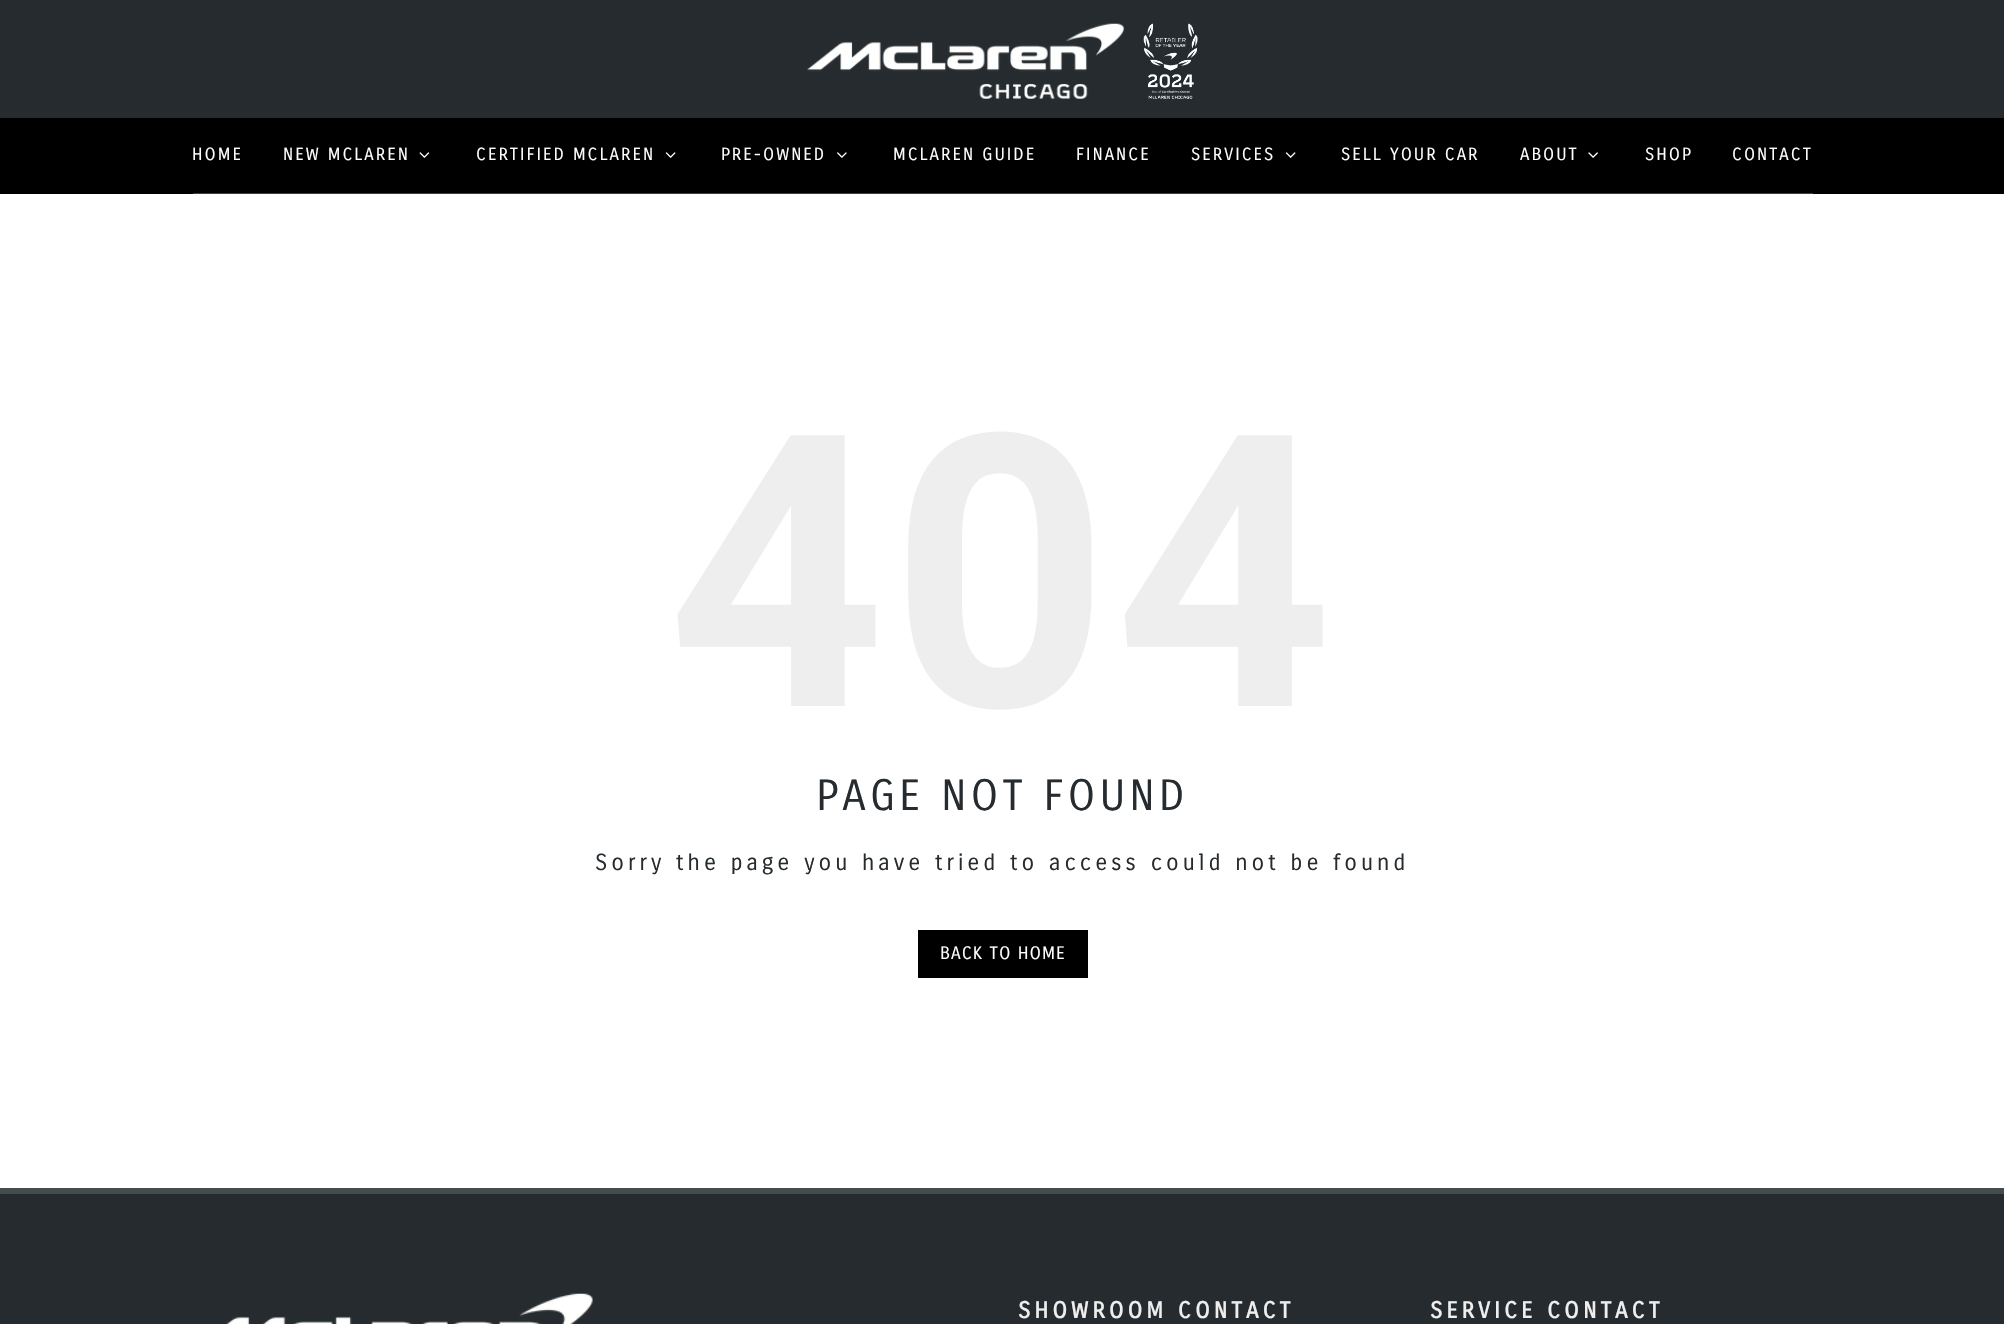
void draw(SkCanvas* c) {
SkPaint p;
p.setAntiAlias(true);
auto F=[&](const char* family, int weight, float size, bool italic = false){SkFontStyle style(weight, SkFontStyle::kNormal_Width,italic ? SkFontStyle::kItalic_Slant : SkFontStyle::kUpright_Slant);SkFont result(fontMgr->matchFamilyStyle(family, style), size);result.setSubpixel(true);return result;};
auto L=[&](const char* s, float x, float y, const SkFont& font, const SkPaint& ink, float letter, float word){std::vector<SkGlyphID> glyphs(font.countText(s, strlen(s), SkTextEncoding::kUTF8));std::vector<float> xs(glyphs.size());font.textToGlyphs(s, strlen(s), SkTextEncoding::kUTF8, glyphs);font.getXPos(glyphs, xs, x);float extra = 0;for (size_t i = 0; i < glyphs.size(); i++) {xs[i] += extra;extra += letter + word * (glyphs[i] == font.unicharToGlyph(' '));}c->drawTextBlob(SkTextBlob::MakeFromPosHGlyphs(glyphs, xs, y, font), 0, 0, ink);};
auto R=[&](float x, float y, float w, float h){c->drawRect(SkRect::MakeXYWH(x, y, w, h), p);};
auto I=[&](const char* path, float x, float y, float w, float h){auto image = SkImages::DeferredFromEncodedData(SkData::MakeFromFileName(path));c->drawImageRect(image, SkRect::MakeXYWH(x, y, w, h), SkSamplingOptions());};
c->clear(0xffffffff);
p.setColor(0xff252b2f);
R(0,0,2004,118);
I("1.png",807,23,317,76);
I("2.png",1143,23,55,76);
p.setColor(0xff000000);
R(0,118,2004,76);
auto f1 = F("Carrois Gothic",400,17);
p.setColor(0xffffffff);
L("HOME",192,160,f1,p,2,0);
L("NEW MCLAREN",283,160,f1,p,2,0);
I("3.png",419,152,11,6);
L("CERTIFIED MCLAREN",476,160,f1,p,2,0);
I("4.png",665,152,11,6);
L("PRE-OWNED",721,160,f1,p,2,0);
I("5.png",837,152,10,6);
L("MCLAREN GUIDE",893,160,f1,p,2,0);
L("FINANCE",1076,160,f1,p,2,0);
L("SERVICES",1191,160,f1,p,2,0);
I("4.png",1285,152,11,6);
L("SELL YOUR CAR",1341,160,f1,p,2,0);
L("ABOUT",1520,160,f1,p,2,0);
I("6.png",1588,152,10,6);
L("SHOP",1645,160,f1,p,2,0);
L("CONTACT",1732,160,f1,p,2,0);
p.setColor(0xff404040);
R(193,193,1620,1);
auto f2 = F("Roboto",700,381);
p.setColor(0xffeeeeee);
L("404",667,706,f2,p,5,0);
auto f3 = F("Carrois Gothic",400,42.5);
p.setColor(0xff252b2f);
L("PAGE NOT FOUND",816,810,f3,p,4,0);
auto f4 = F("Carrois Gothic",400,22.5);
L("Sorry the page you have tried to access could not be found",595,870,f4,p,4,0);
p.setColor(0xff000000);
R(918,930,170,48);
auto f5 = F("Carrois Gothic",400,17.5);
p.setColor(0xffffffff);
L("BACK TO HOME",940,959,f5,p,1,0);
p.setColor(0xff252b2f);
R(0,1194,2004,130);
p.setColor(0xff464b4e);
R(0,1188,2004,6);
I("7.png",226,1293,367,31);
auto f6 = F("Carrois Gothic",700,22.5);
p.setColor(0xffeeeeee);
L("SHOWROOM CONTACT",1018,1318,f6,p,4,0);
L("SERVICE CONTACT",1430,1318,f6,p,4,0);
}
